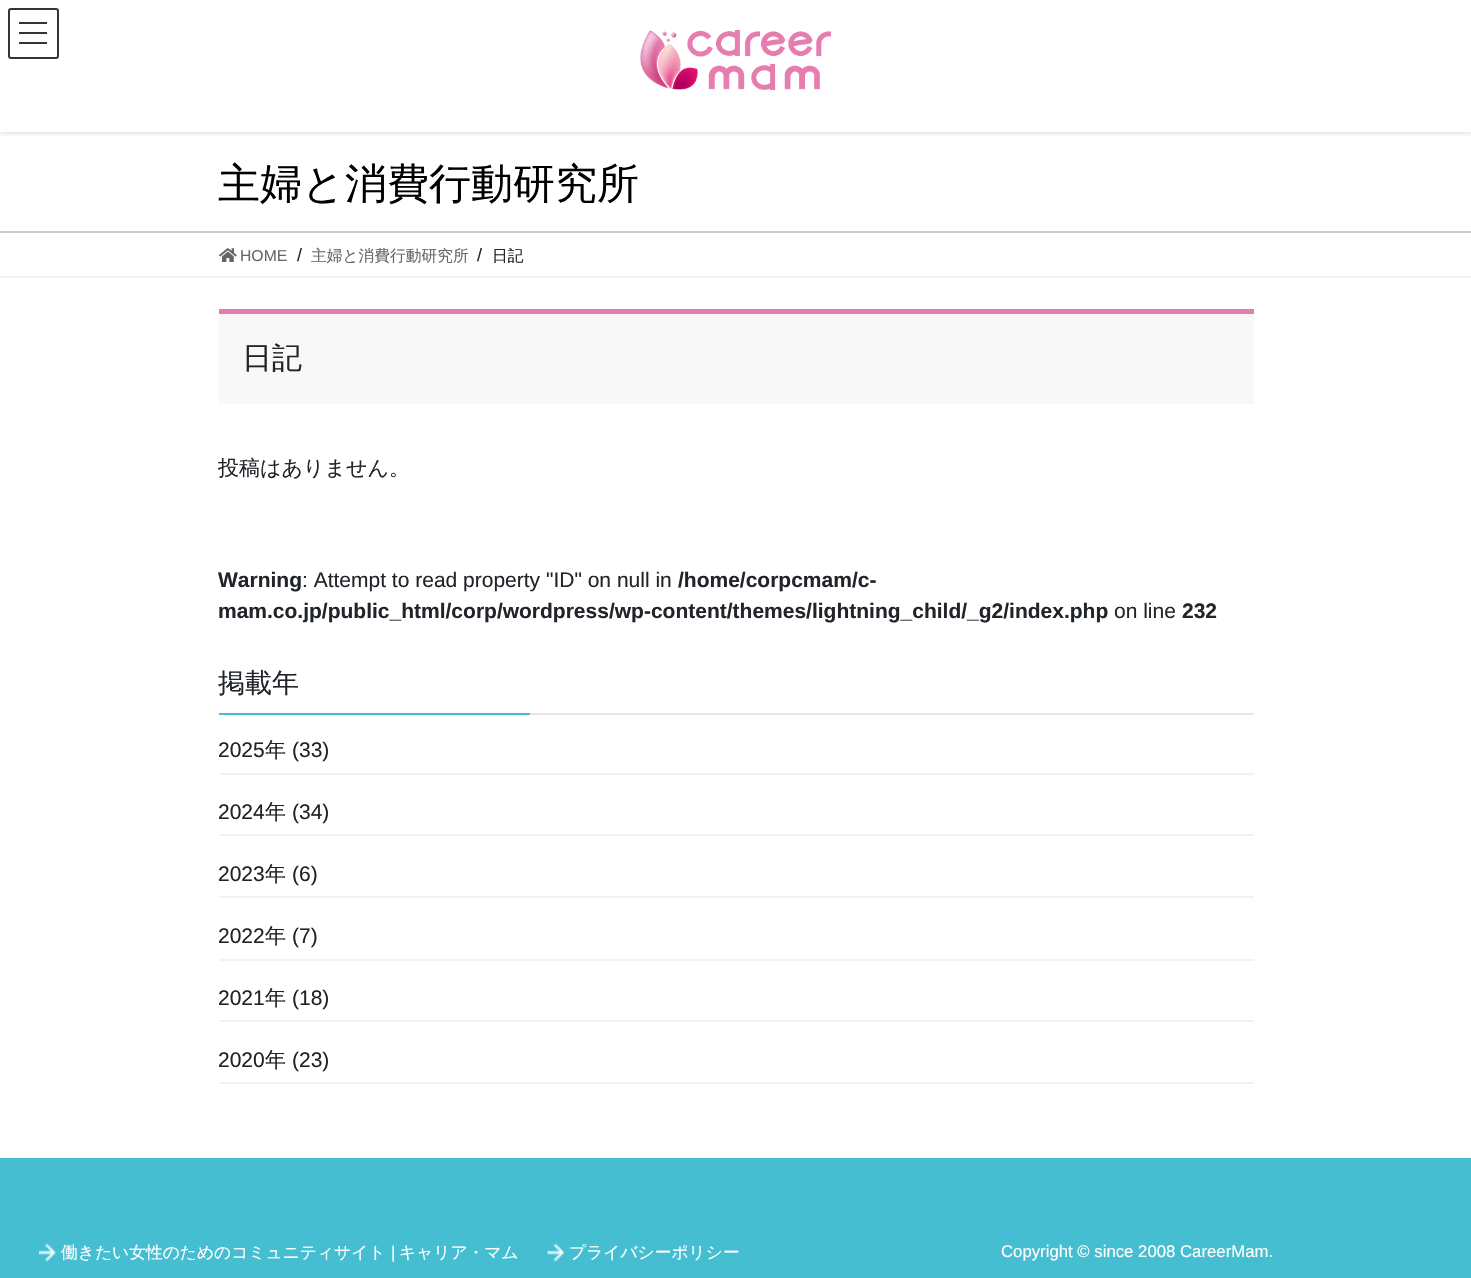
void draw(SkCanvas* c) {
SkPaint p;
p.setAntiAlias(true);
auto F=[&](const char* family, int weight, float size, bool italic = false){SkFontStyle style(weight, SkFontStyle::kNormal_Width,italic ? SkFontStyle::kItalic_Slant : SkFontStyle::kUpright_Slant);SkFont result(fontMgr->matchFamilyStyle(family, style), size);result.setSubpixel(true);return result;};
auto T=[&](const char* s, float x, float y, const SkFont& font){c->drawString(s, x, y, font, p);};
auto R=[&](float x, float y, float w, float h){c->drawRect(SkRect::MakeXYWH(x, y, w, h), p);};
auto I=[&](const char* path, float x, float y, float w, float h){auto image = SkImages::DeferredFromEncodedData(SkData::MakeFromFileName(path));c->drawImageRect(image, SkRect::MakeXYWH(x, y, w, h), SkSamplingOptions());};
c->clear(0xffffffff);
c->save();
c->clipRect(SkRect::MakeXYWH(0,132,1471,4));
p.setColor(0x1a000000);
p.setMaskFilter(SkMaskFilter::MakeBlur(kNormal_SkBlurStyle, 2));
c->drawRect(SkRect::MakeXYWH(0,-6,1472,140),p);
p.setMaskFilter(nullptr);
c->restore();
I("1.png",640,30,191,60);
p.setColor(0xffcccccc);
R(0,231,1471,2);
auto f1 = F("WenQuanYi Zen Hei",500,42);
p.setColor(0xff000000);
T("主婦と消費行動研究所",218,198,f1);
p.setColor(0xfff2f2f2);
R(0,276,1471,2);
I("2.png",219,248,18,14);
auto f2 = F("Liberation Sans",400,15.75);
p.setColor(0xff666666);
T("HOME",240,261,f2);
auto f3 = F("Liberation Sans",400,18);
p.setColor(0xff212529);
T("/",297,261,f3);
auto f4 = F("WenQuanYi Zen Hei",500,15.75);
p.setColor(0xff666666);
T("主婦と消費行動研究所",311,261,f4);
p.setColor(0xff212529);
T("/",477,261,f3);
T("日記",492,261,f4);
p.setColor(0xfff8f8f8);
R(219,314,1035,90);
p.setColor(0xffe47daa);
R(219,309,1035,5);
auto f5 = F("WenQuanYi Zen Hei",500,30);
p.setColor(0xff212529);
T("日記",242,368,f5);
auto f6 = F("WenQuanYi Zen Hei",500,21);
T("投稿はありません。",218,475,f6);
auto f7 = F("Liberation Sans",700,21);
T("Warning",218,587,f7);
auto f8 = F("Liberation Sans",400,21);
T(": Attempt to read property \"ID\" on null in",302,587,f8);
T("/home/corpcmam/c-",678,587,f7);
T("mam.co.jp/public_html/corp/wordpress/wp-content/themes/lightning_child/_g2/index.php",218,618,f7);
T("on line",1114,618,f8);
T("232",1182,618,f7);
p.setColor(0xffe6e6e6);
R(530,713,724,2);
auto f9 = F("WenQuanYi Zen Hei",500,27);
p.setColor(0xff212529);
T("掲載年",218,692,f9);
p.setColor(0xff45bed1);
R(219,713,311,2);
p.setColor(0xfff2f2f2);
R(219,773,1035,2);
p.setColor(0xff222222);
T("2025",218,757,f8);
T("年",265,757,f6);
T("(33)",292,757,f8);
p.setColor(0xfff2f2f2);
R(219,834,1035,2);
p.setColor(0xff222222);
T("2024",218,819,f8);
T("年",265,819,f6);
T("(34)",292,819,f8);
p.setColor(0xfff2f2f2);
R(219,896,1035,2);
p.setColor(0xff222222);
T("2023",218,881,f8);
T("年",265,881,f6);
T("(6)",292,881,f8);
p.setColor(0xfff2f2f2);
R(219,959,1035,2);
p.setColor(0xff222222);
T("2022",218,943,f8);
T("年",265,943,f6);
T("(7)",292,943,f8);
p.setColor(0xfff2f2f2);
R(219,1020,1035,2);
p.setColor(0xff222222);
T("2021",218,1005,f8);
T("年",265,1005,f6);
T("(18)",292,1005,f8);
p.setColor(0xfff2f2f2);
R(219,1082,1035,2);
p.setColor(0xff222222);
T("2020",218,1067,f8);
T("年",265,1067,f6);
T("(23)",292,1067,f8);
p.setColor(0xff45bed1);
R(0,1158,1471,120);
p.setColor(0xff333333);
R(19,22,28,2);
R(19,32,28,2);
R(19,42,28,2);
p.setStroke(true);
p.setStrokeWidth(2);
c->drawRoundRect(SkRect::MakeXYWH(9,9,49,49),2,2,p);
I("3.png",39,1243,17,19);
auto f10 = F("WenQuanYi Zen Hei",500,16.75);
p.setStroke(false);
p.setColor(0xffffffff);
T("働きたい女性のためのコミュニティサイト",61,1258,f10);
auto f11 = F("Liberation Sans",400,16.75);
T("|",391,1258,f11);
T("キャリア・マム",399,1258,f10);
I("4.png",547,1243,17,19);
T("プライバシーポリシー",569,1258,f10);
T("Copyright © since 2008 CareerMam.",1001,1257,f11);
}
